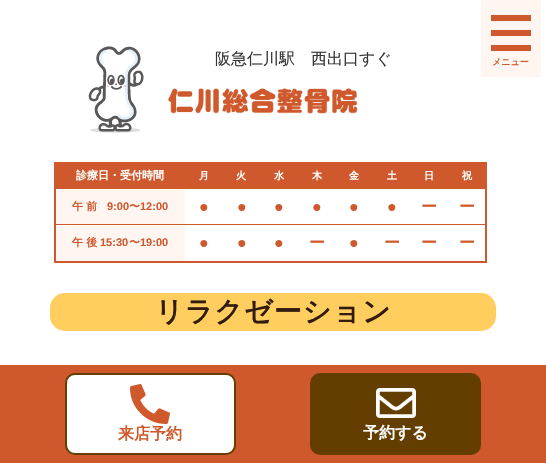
void draw(SkCanvas* c) {
SkPaint p;
p.setAntiAlias(true);
auto F=[&](const char* family, int weight, float size, bool italic = false){SkFontStyle style(weight, SkFontStyle::kNormal_Width,italic ? SkFontStyle::kItalic_Slant : SkFontStyle::kUpright_Slant);SkFont result(fontMgr->matchFamilyStyle(family, style), size);result.setSubpixel(true);return result;};
auto T=[&](const char* s, float x, float y, const SkFont& font){c->drawString(s, x, y, font, p);};
auto L=[&](const char* s, float x, float y, const SkFont& font, const SkPaint& ink, float letter, float word){std::vector<SkGlyphID> glyphs(font.countText(s, strlen(s), SkTextEncoding::kUTF8));std::vector<float> xs(glyphs.size());font.textToGlyphs(s, strlen(s), SkTextEncoding::kUTF8, glyphs);font.getXPos(glyphs, xs, x);float extra = 0;for (size_t i = 0; i < glyphs.size(); i++) {xs[i] += extra;extra += letter + word * (glyphs[i] == font.unicharToGlyph(' '));}c->drawTextBlob(SkTextBlob::MakeFromPosHGlyphs(glyphs, xs, y, font), 0, 0, ink);};
auto R=[&](float x, float y, float w, float h){c->drawRect(SkRect::MakeXYWH(x, y, w, h), p);};
auto Q=[&](float x, float y, float w, float h, float radius){c->drawRoundRect(SkRect::MakeXYWH(x, y, w, h), radius, radius, p);};
auto I=[&](const char* path, float x, float y, float w, float h){auto image = SkImages::DeferredFromEncodedData(SkData::MakeFromFileName(path));c->drawImageRect(image, SkRect::MakeXYWH(x, y, w, h), SkSamplingOptions());};
c->clear(0xffffffff);
I("1.png",88,46,56,87);
auto f1 = F("WenQuanYi Zen Hei",500,16);
p.setColor(0xff343434);
T("阪急仁川駅　西出口すぐ",215,64,f1);
I("2.png",168,88,190,26);
p.setColor(0xffcf592c);
R(54,162,433,2);
R(55,188,431,1);
R(55,224,431,1);
R(485,162,2,101);
R(54,261,433,2);
R(54,162,2,101);
R(56,164,429,24);
auto f2 = F("WenQuanYi Zen Hei",700,11);
p.setColor(0xffffffff);
T("診療日・受付時間",76,179,f2);
auto f3 = F("WenQuanYi Zen Hei",700,10);
T("月",199,179,f3);
T("火",236,179,f3);
T("水",274,179,f3);
T("木",312,179,f3);
T("金",349,179,f3);
T("土",387,179,f3);
T("日",424,179,f3);
T("祝",462,179,f3);
p.setColor(0xfffff6f2);
R(56,190,129,34);
p.setColor(0xffcf592c);
T("午 前",72,210,f2);
auto f4 = F("Liberation Sans",700,11);
T("9:00",107,210,f4);
T("〜",129,210,f2);
T("12:00",140,210,f4);
auto f5 = F("Liberation Sans",700,16);
T("●",199,212,f5);
T("●",237,212,f5);
T("●",274,212,f5);
T("●",312,212,f5);
T("●",349,212,f5);
T("●",387,212,f5);
auto f6 = F("WenQuanYi Zen Hei",700,16);
T("ー",421,212,f6);
T("ー",459,212,f6);
p.setColor(0xfffff6f2);
R(56,226,129,35);
p.setColor(0xffcf592c);
T("午 後",72,246,f2);
T("15:30",100,246,f4);
T("〜",129,246,f2);
T("19:00",140,246,f4);
T("●",199,248,f5);
T("●",237,248,f5);
T("●",274,248,f5);
T("ー",309,248,f6);
T("●",349,248,f5);
T("ー",384,248,f6);
T("ー",421,248,f6);
T("ー",459,248,f6);
p.setColor(0xfffff6f2);
R(481,0,60,77);
p.setColor(0xffcf592c);
R(491,15,40,6);
R(491,30,40,6);
R(491,45,40,6);
auto f7 = F("WenQuanYi Zen Hei",700,9);
T("メニュー",492,65,f7);
p.setColor(0xffffce5f);
Q(50,293,446,38,15);
auto f8 = F("WenQuanYi Zen Hei",700,28);
p.setColor(0xff321c0f);
L("リラクゼーション",155,321,f8,p,1,0);
p.setColor(0xffcf592c);
R(0,365,546,98);
p.setColor(0xffffffff);
c->drawRoundRect(SkRect::MakeXYWH(66,374,169,80),9,9,p);
p.setStroke(true);
p.setStrokeWidth(2);
p.setColor(0xff643e01);
c->drawRoundRect(SkRect::MakeXYWH(66,374,169,80),9,9,p);
I("3.png",130,384,40,40);
p.setStroke(false);
p.setColor(0xffcf592c);
T("来店予約",118,439,f6);
p.setColor(0xff643e01);
Q(310,373,171,82,10);
I("4.png",376,388,40,30);
p.setColor(0xffffffff);
T("予約する",363,438,f6);
}
